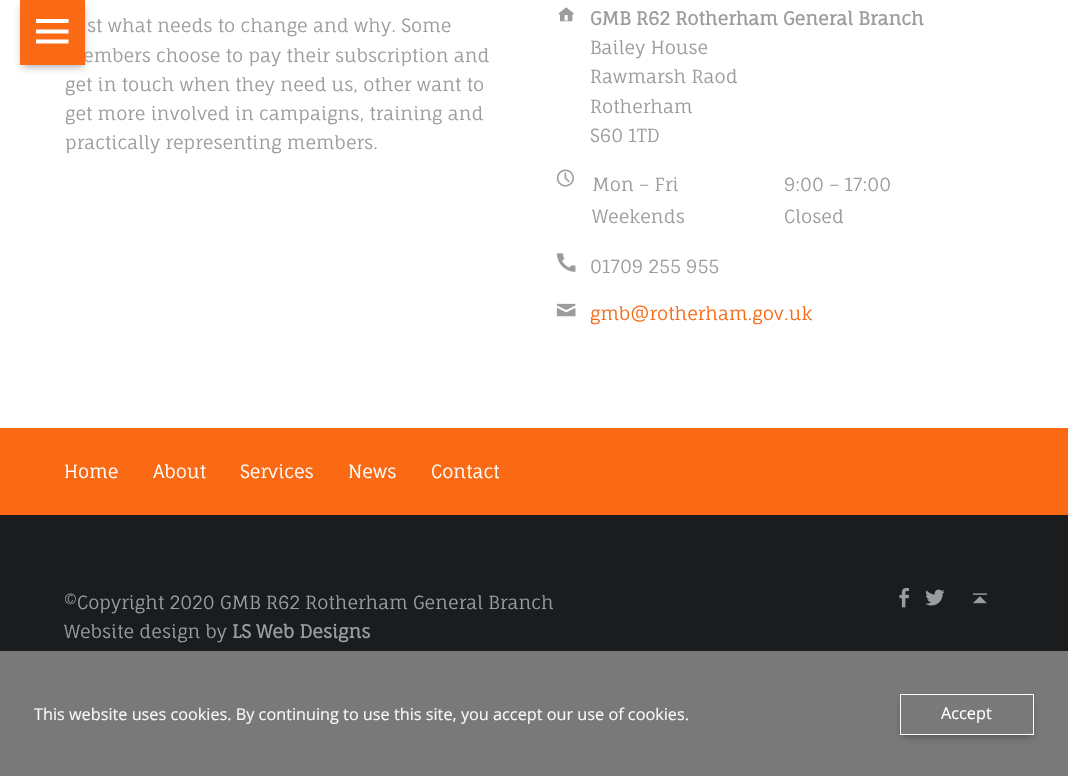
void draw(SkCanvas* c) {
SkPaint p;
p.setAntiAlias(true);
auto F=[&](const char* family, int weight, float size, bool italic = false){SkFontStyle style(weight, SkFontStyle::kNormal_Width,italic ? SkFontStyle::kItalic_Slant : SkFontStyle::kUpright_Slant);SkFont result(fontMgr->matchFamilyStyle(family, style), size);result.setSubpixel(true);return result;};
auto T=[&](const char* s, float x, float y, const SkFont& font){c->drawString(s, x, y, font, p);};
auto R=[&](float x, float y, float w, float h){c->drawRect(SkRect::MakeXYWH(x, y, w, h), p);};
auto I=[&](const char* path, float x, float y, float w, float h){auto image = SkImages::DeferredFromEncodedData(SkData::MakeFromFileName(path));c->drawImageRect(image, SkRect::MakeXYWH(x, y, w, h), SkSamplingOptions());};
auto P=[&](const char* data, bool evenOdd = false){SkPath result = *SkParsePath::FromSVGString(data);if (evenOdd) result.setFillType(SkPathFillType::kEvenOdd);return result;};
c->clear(0xffffffff);
p.setColor(0x66000000);
p.setMaskFilter(SkMaskFilter::MakeBlur(kNormal_SkBlurStyle, 4));
c->drawRoundRect(SkRect::MakeXYWH(23,6,60,60),1,1,p);
p.setMaskFilter(nullptr);
auto f1 = F("Fauna One",400,18);
p.setColor(0xff9a9c9e);
T("embers choose to pay their subscription and",83,62,f1);
p.setColor(0xfffa6a15);
R(20,0,65,65);
p.setColor(0xffffffff);
c->drawPath(P("M36 43.5v-4h32.5v4zm0-24.5h32.5v4h-32.5zm0 14.5v-4h32.5v4z"),p);
p.setColor(0xff9a9c9e);
T("st what needs to change and why. Some",87,32,f1);
T("get in touch when they need us, other want to",65,91,f1);
T("get more involved in campaigns, training and",65,120,f1);
T("practically representing members.",65,149,f1);
I("1.png",558,7,16,15);
auto f2 = F("Fauna One",700,18);
T("GMB R62 Rotherham General Branch",590,25,f2);
T("Bailey House",590,54,f1);
T("Rawmarsh Raod",590,83,f1);
T("Rotherham",590,113,f1);
T("S60 1TD",590,142,f1);
I("2.png",556,169,18,18);
T("Mon – Fri",592,191,f1);
T("9:00 – 17:00",784,191,f1);
T("Weekends",592,223,f1);
T("Closed",784,223,f1);
I("3.png",556,253,20,19);
T("01709 255 955",590,273,f1);
I("4.png",556,303,20,14);
p.setColor(0xfffa6a15);
T("gmb@rotherham.gov.uk",590,320,f1);
R(0,428,1068,87);
p.setColor(0xffffffff);
T("Home",64,478,f1);
T("About",153,478,f1);
T("Services",240,478,f1);
T("News",348,478,f1);
T("Contact",431,478,f1);
p.setColor(0xff1a1c1e);
R(0,515,1068,136);
p.setColor(0xff797979);
R(0,651,1068,125);
p.setColor(0xff9a9c9e);
T("©Copyright 2020 GMB R62 Rotherham General Branch",64,609,f1);
T("Website design by",64,638,f1);
T("LS Web Designs",232,638,f2);
I("5.png",899,588,10,20);
I("6.png",925,589,20,17);
I("7.png",972,593,15,11);
auto f3 = F("Open Sans",400,16.25);
p.setColor(0xfff8f8f8);
T("This website uses cookies. By continuing to use this site, you accept our use of cookies.",34,720,f3);
c->save();
c->clipPath(P("M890 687h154v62h-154zm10 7h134v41h-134z",true),true);
p.setColor(0x63000000);
p.setMaskFilter(SkMaskFilter::MakeBlur(kNormal_SkBlurStyle, 4));
c->drawRect(SkRect::MakeXYWH(903,700,128,36),p);
p.setMaskFilter(nullptr);
c->restore();
p.setStroke(true);
p.setStrokeWidth(1);
p.setColor(0xf7ffffff);
c->drawRect(SkRect::MakeXYWH(900.5,694.5,133,40),p);
p.setStroke(false);
p.setColor(0xffffffff);
T("Accept",941,719,f3);
}
